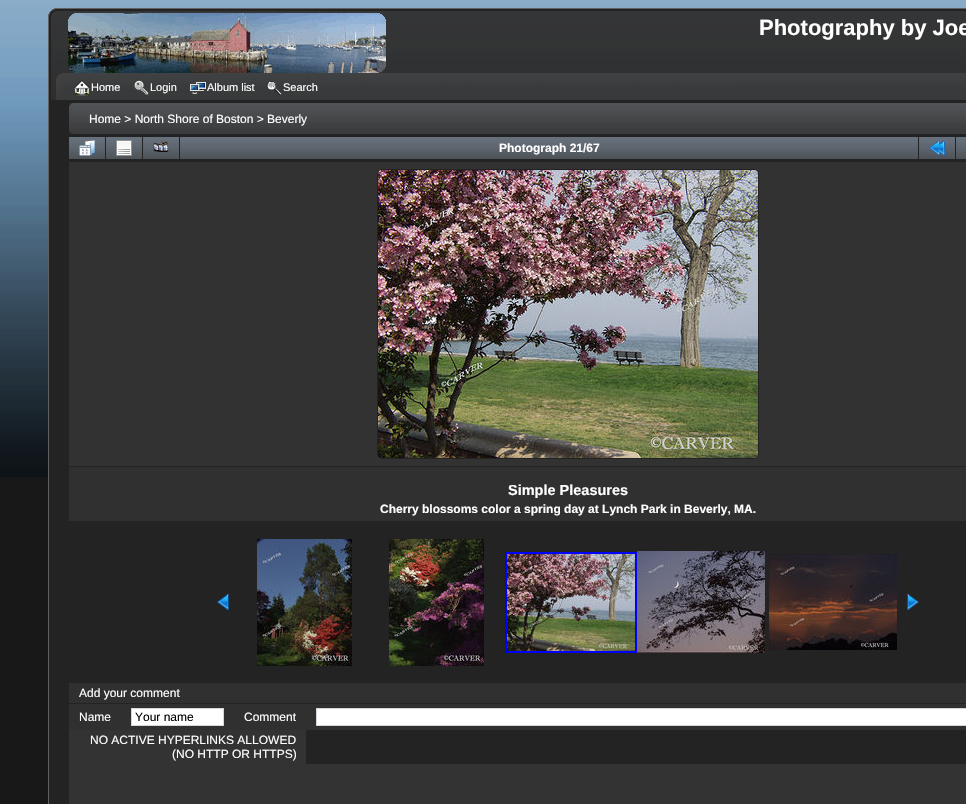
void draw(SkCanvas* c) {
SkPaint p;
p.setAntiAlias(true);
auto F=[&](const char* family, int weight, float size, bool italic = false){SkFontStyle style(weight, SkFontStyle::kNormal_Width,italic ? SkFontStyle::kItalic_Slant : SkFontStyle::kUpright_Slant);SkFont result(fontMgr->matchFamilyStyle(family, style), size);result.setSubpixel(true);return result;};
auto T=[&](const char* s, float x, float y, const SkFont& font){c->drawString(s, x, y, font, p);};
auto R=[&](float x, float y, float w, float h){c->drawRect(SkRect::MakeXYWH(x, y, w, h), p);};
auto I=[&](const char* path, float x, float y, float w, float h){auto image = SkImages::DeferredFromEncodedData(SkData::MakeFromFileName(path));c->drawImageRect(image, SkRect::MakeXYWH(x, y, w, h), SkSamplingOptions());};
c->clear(0xff181818);
I("1.png",0,0,966,477);
I("2.png",48,8,918,65);
I("3.png",68,13,318,60);
auto f1 = F("Liberation Sans",700,22);
p.setColor(0xffffffff);
T("Photography by Joe",759,35,f1);
I("4.png",48,73,918,27);
I("5.png",74,80,16,16);
auto f2 = F("Liberation Sans",400,11);
T("Home",91,91,f2);
I("6.png",134,80,15,16);
T("Login",150,91,f2);
I("7.png",190,82,16,12);
T("Album list",207,91,f2);
I("8.png",266,81,16,14);
T("Search",283,91,f2);
p.setColor(0xff232323);
R(49,100,917,704);
p.setColor(0xff616161);
R(48,100,1,704);
I("9.png",69,103,897,31);
auto f3 = F("Liberation Sans",400,12);
p.setColor(0xffffffff);
T("Home > North Shore of Boston > Beverly",89,123,f3);
I("10.png",69,137,36,22);
I("11.png",79,140,16,16);
I("10.png",106,137,36,22);
I("12.png",116,140,16,16);
I("10.png",143,137,36,22);
I("13.png",153,141,16,12);
I("14.png",180,137,738,22);
auto f4 = F("Liberation Sans",700,12);
T("Photograph 21/67",499,152,f4);
I("10.png",919,137,36,22);
I("15.png",929,140,16,16);
I("16.png",956,137,10,22);
p.setColor(0xff323232);
R(69,162,897,304);
p.setStroke(true);
p.setStrokeWidth(1);
p.setColor(0xff232323);
c->drawRoundRect(SkRect::MakeXYWH(377.5,169.5,381,289),4.5,4.5,p);
I("17.png",378,170,380,288);
p.setStroke(false);
p.setColor(0xff303030);
R(69,467,897,54);
auto f5 = F("Liberation Sans",700,14.5);
p.setColor(0xffffffff);
T("Simple Pleasures",508,495,f5);
T("Cherry blossoms color a spring day at Lynch Park in Beverly, MA.",380,513,f4);
I("18.png",217,594,12,16);
I("19.png",257,539,95,127);
I("20.png",389,539,95,127);
p.setStroke(true);
p.setStrokeWidth(2);
p.setColor(0xff0000ff);
c->drawRect(SkRect::MakeXYWH(506,553,130,99),p);
I("21.png",507,554,128,97);
I("22.png",637,551,128,102);
I("23.png",769,554,128,96);
I("24.png",907,594,12,16);
p.setStroke(false);
p.setColor(0xff303030);
R(69,683,897,20);
p.setColor(0xffffffff);
T("Add your comment",79,697,f3);
p.setColor(0xff303030);
R(69,704,897,26);
p.setColor(0xffffffff);
T("Name",79,721,f3);
c->drawRect(SkRect::MakeXYWH(131.5,708.5,92,17),p);
p.setStroke(true);
p.setStrokeWidth(1);
p.setColor(0xffd1d7dc);
c->drawRect(SkRect::MakeXYWH(131.5,708.5,92,17),p);
p.setStroke(false);
p.setColor(0xff000000);
T("Your name",135,721,f3);
p.setColor(0xffffffff);
T("Comment",244,721,f3);
c->drawRect(SkRect::MakeXYWH(316.5,708.5,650,17),p);
p.setStroke(true);
p.setColor(0xffd1d7dc);
c->drawRect(SkRect::MakeXYWH(316.5,708.5,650,17),p);
p.setStroke(false);
p.setColor(0xff333333);
R(69,730,237,74);
p.setColor(0xffffffff);
T("NO ACTIVE HYPERLINKS ALLOWED",90,744,f3);
T("(NO HTTP OR HTTPS)",172,758,f3);
p.setColor(0xff333333);
R(306,764,660,40);
}
